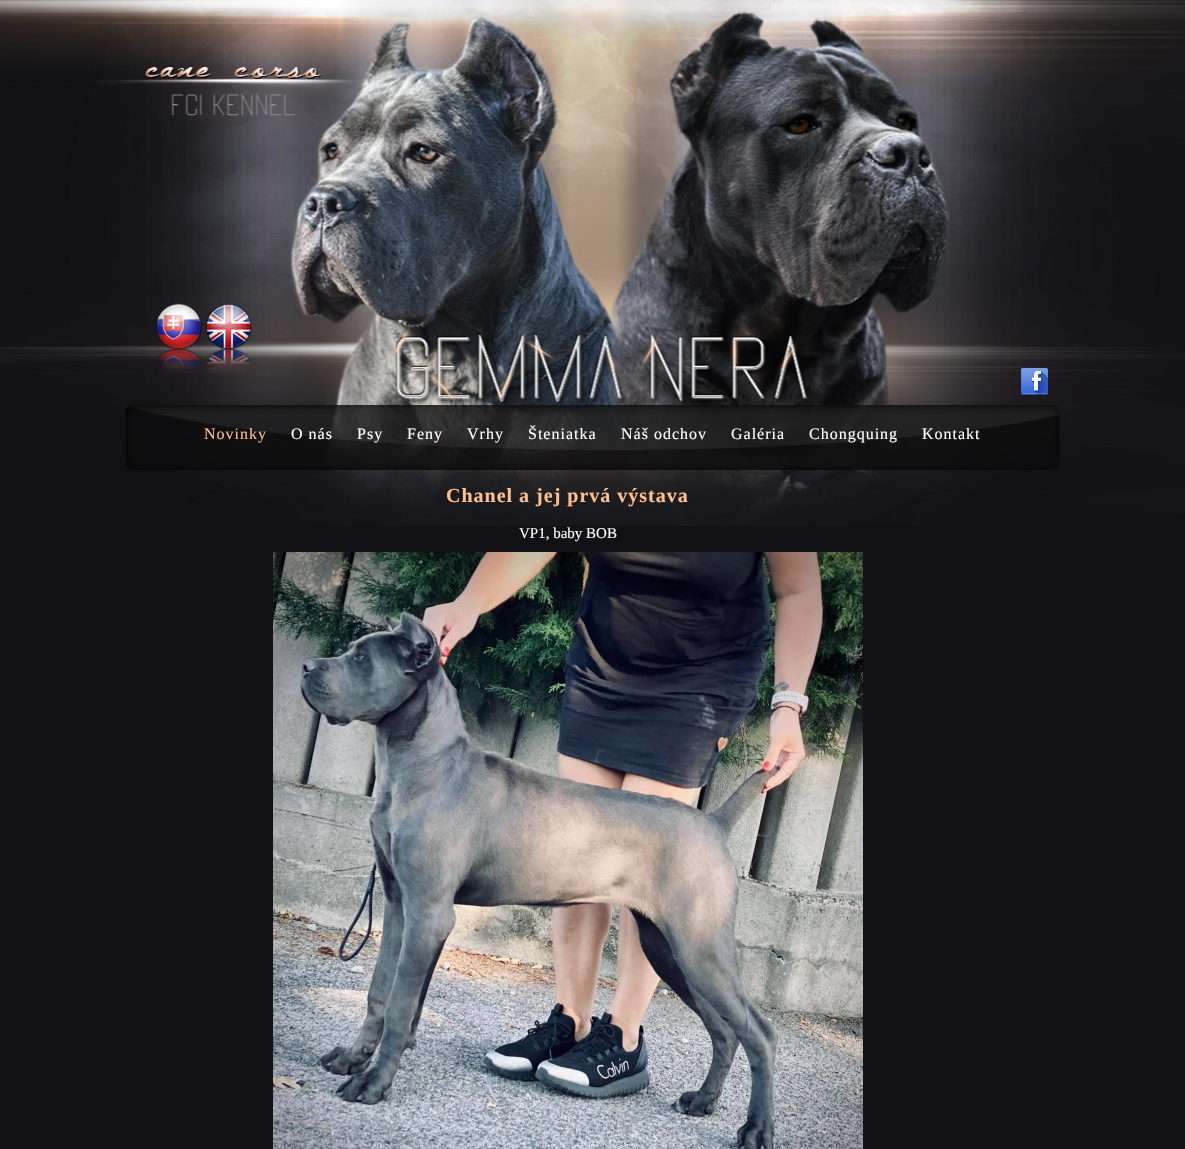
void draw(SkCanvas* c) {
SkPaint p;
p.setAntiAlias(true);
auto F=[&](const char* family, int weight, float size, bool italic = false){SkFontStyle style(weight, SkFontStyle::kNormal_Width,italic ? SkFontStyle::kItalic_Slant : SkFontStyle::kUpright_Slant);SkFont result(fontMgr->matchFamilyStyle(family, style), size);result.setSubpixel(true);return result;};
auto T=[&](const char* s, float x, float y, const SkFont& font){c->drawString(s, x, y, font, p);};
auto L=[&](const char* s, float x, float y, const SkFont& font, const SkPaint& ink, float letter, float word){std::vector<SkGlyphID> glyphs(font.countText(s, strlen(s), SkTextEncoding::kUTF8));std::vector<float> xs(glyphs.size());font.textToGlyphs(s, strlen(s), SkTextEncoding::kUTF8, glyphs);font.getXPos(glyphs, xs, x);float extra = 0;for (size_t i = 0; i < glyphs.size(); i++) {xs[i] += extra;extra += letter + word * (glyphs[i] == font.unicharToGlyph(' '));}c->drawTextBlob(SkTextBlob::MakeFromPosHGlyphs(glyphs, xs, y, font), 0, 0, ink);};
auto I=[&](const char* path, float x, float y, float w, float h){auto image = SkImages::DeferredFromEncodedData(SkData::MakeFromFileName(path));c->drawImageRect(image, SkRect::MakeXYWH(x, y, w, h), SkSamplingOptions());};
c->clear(0xff111115);
I("1.png",0,0,1185,526);
I("2.png",156,303,46,70);
I("3.png",206,304,46,69);
I("4.png",1021,368,27,27);
auto f1 = F("Liberation Serif",400,16);
p.setColor(0xfffebe8e);
L("Novinky",204,439,f1,p,1,0);
p.setColor(0xffffffff);
L("O nás",291,439,f1,p,1,0);
L("Psy",357,439,f1,p,1,0);
L("Feny",407,439,f1,p,1,0);
L("Vrhy",467,439,f1,p,1,0);
L("Šteniatka",528,439,f1,p,1,0);
L("Náš odchov",621,439,f1,p,1,0);
L("Galéria",731,439,f1,p,1,0);
L("Chongquing",809,439,f1,p,1,0);
L("Kontakt",922,439,f1,p,1,0);
auto f2 = F("Liberation Serif",700,20);
p.setColor(0xfffebe8e);
L("Chanel a jej prvá výstava",446,502,f2,p,1,0);
auto f3 = F("Liberation Serif",400,15);
p.setColor(0xffffffff);
T("VP1, baby BOB",519,538,f3);
I("5.png",273,552,590,597);
}
